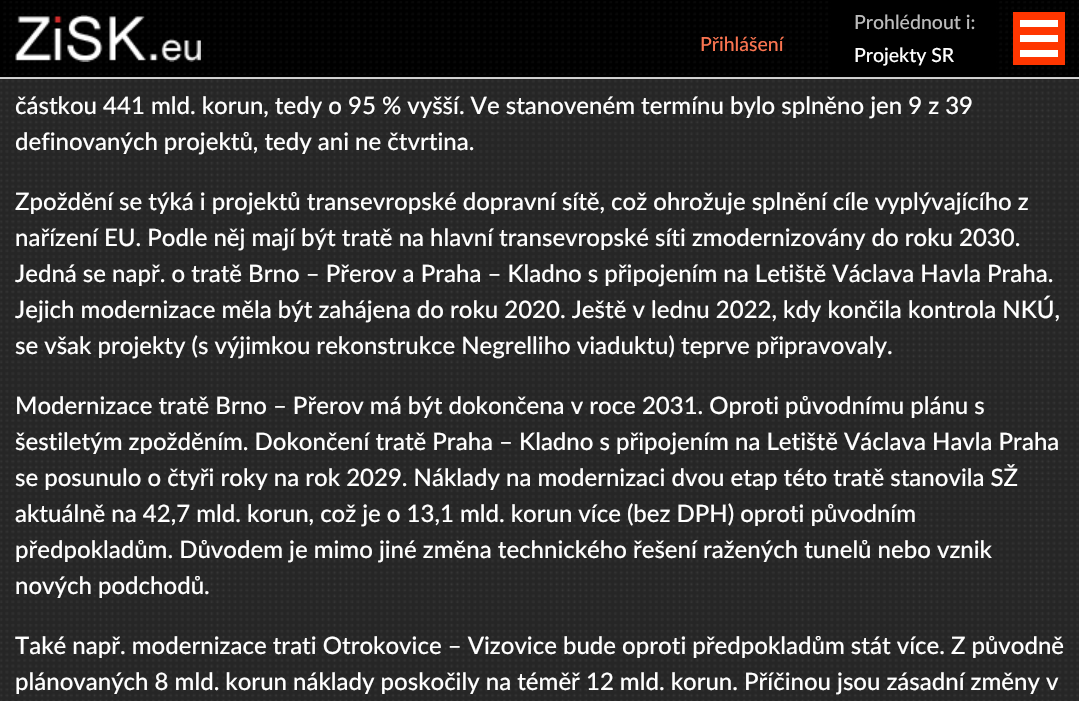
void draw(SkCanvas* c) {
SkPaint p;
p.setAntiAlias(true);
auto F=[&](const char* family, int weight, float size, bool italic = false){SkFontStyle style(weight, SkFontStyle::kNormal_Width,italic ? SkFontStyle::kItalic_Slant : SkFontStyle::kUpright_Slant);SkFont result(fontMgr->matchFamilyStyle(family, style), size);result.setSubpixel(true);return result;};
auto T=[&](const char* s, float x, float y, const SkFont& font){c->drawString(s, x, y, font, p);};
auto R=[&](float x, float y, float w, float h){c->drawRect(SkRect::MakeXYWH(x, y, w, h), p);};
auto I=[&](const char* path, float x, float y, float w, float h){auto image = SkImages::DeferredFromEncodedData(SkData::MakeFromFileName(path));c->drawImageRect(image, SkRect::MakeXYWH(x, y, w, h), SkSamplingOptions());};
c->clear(0xffffffff);
I("1.png",0,78,1079,623);
p.setColor(0xff000000);
R(0,0,1079,78);
I("2.png",3,1,1076,74);
p.setColor(0xccffffff);
R(0,77,1079,2);
I("3.png",15,15,186,47);
auto f1 = F("Lato",500,19.5);
p.setColor(0xfffa7450);
T("Přihlášení",700,51,f1);
p.setColor(0xff000000);
R(831,1,165,74);
p.setColor(0xffbcbcbc);
T("Prohlédnout i:",854,29,f1);
p.setColor(0xffffffff);
T("Projekty SR",854,62,f1);
p.setColor(0xffff3600);
R(1013,12,52,53);
p.setColor(0xffffffff);
R(1020,20,38,7);
R(1020,35,38,7);
R(1020,50,38,7);
auto f2 = F("Lato",500,24);
T("částkou 441 mld. korun, tedy o 95 % vyšší. Ve stanoveném termínu bylo splněno jen 9 z 39",15,114,f2);
T("definovaných projektů, tedy ani ne čtvrtina.",15,150,f2);
T("Zpoždění se týká i projektů transevropské dopravní sítě, což ohrožuje splnění cíle vyplývajícího z",15,210,f2);
T("nařízení EU. Podle něj mají být tratě na hlavní transevropské síti zmodernizovány do roku 2030.",15,246,f2);
T("Jedná se např. o tratě Brno – Přerov a Praha – Kladno s připojením na Letiště Václava Havla Praha.",15,282,f2);
T("Jejich modernizace měla být zahájena do roku 2020. Ještě v lednu 2022, kdy končila kontrola NKÚ,",15,318,f2);
T("se však projekty (s výjimkou rekonstrukce Negrelliho viaduktu) teprve připravovaly.",15,354,f2);
T("Modernizace tratě Brno – Přerov má být dokončena v roce 2031. Oproti původnímu plánu s",15,414,f2);
T("šestiletým zpožděním. Dokončení tratě Praha – Kladno s připojením na Letiště Václava Havla Praha",15,450,f2);
T("se posunulo o čtyři roky na rok 2029. Náklady na modernizaci dvou etap této tratě stanovila SŽ",15,486,f2);
T("aktuálně na 42,7 mld. korun, což je o 13,1 mld. korun více (bez DPH) oproti původním",15,522,f2);
T("předpokladům. Důvodem je mimo jiné změna technického řešení ražených tunelů nebo vznik",15,558,f2);
T("nových podchodů.",15,594,f2);
T("Také např. modernizace trati Otrokovice – Vizovice bude oproti předpokladům stát více. Z původně",15,654,f2);
T("plánovaných 8 mld. korun náklady poskočily na téměř 12 mld. korun. Příčinou jsou zásadní změny v",15,690,f2);
}
